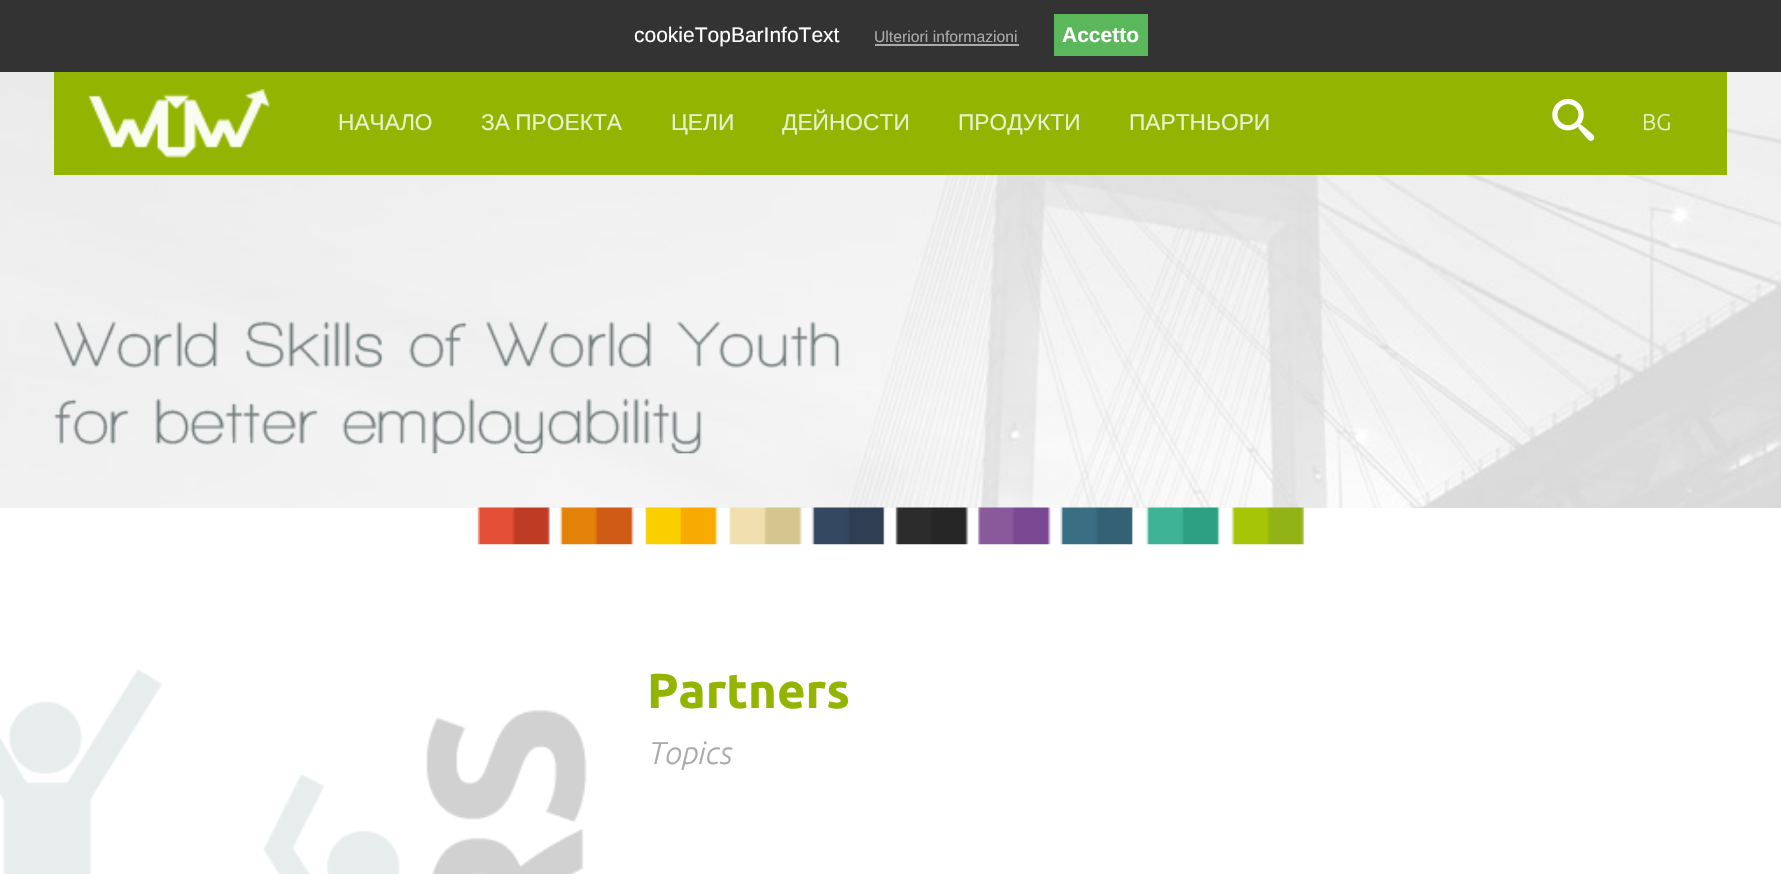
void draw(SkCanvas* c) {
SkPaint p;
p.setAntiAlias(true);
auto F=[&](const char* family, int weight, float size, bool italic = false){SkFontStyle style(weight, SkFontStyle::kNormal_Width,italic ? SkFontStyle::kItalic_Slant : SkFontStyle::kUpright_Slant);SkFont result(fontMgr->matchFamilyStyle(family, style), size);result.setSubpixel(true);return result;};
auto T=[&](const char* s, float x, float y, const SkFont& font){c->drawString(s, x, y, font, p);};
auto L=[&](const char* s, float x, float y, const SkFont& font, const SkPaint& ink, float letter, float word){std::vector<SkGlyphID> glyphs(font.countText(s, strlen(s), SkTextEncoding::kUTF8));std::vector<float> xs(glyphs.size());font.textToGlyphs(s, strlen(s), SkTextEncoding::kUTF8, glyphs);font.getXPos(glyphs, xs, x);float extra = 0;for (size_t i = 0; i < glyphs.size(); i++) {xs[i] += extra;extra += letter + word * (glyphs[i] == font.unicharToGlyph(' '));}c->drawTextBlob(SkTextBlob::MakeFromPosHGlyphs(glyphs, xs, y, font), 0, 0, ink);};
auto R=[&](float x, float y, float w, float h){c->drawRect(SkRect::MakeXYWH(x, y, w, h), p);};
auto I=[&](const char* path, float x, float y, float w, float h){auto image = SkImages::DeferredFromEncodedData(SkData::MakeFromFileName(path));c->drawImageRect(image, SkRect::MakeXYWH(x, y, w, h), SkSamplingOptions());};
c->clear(0xffffffff);
I("1.png",0,72,1781,436);
p.setColor(0xff333333);
R(0,0,1781,72);
auto f1 = F("Liberation Sans",400,21);
p.setColor(0xffffffff);
T("cookieTopBarInfoText",634,42,f1);
auto f2 = F("Liberation Sans",400,15.75);
p.setColor(0xffaaaaaa);
T("Ulteriori informazioni",874,42,f2);
R(875,44,144,2);
p.setColor(0xff5bb75b);
R(1054,14,94,42);
auto f3 = F("Liberation Sans",700,21);
p.setColor(0xffffffff);
T("Accetto",1062,42,f3);
p.setColor(0xff93b400);
R(54,72,1673,103);
I("2.png",88,89,182,69);
auto f4 = F("Liberation Sans",400,22.75);
p.setColor(0xffe9f0cc);
T("НАЧАЛО",338,130,f4);
L("ЗА ПРОЕКТА",481,130,f4,p,0,-1);
T("ЦЕЛИ",671,130,f4);
T("ДЕЙНОСТИ",782,130,f4);
T("ПРОДУКТИ",958,130,f4);
T("ПАРТНЬОРИ",1129,130,f4);
I("3.png",1552,98,43,43);
auto f5 = F("Ubuntu",300,22.75);
T("BG",1642,130,f5);
I("4.png",54,321,787,133);
I("5.png",477,507,827,38);
I("6.png",0,669,400,205);
I("7.png",426,710,161,164);
auto f6 = F("Ubuntu",700,49);
p.setColor(0xff93b400);
T("Partners",647,708,f6);
auto f7 = F("Ubuntu",300,31.5,true);
p.setColor(0xffaaaaaa);
T("Topics",647,764,f7);
}
